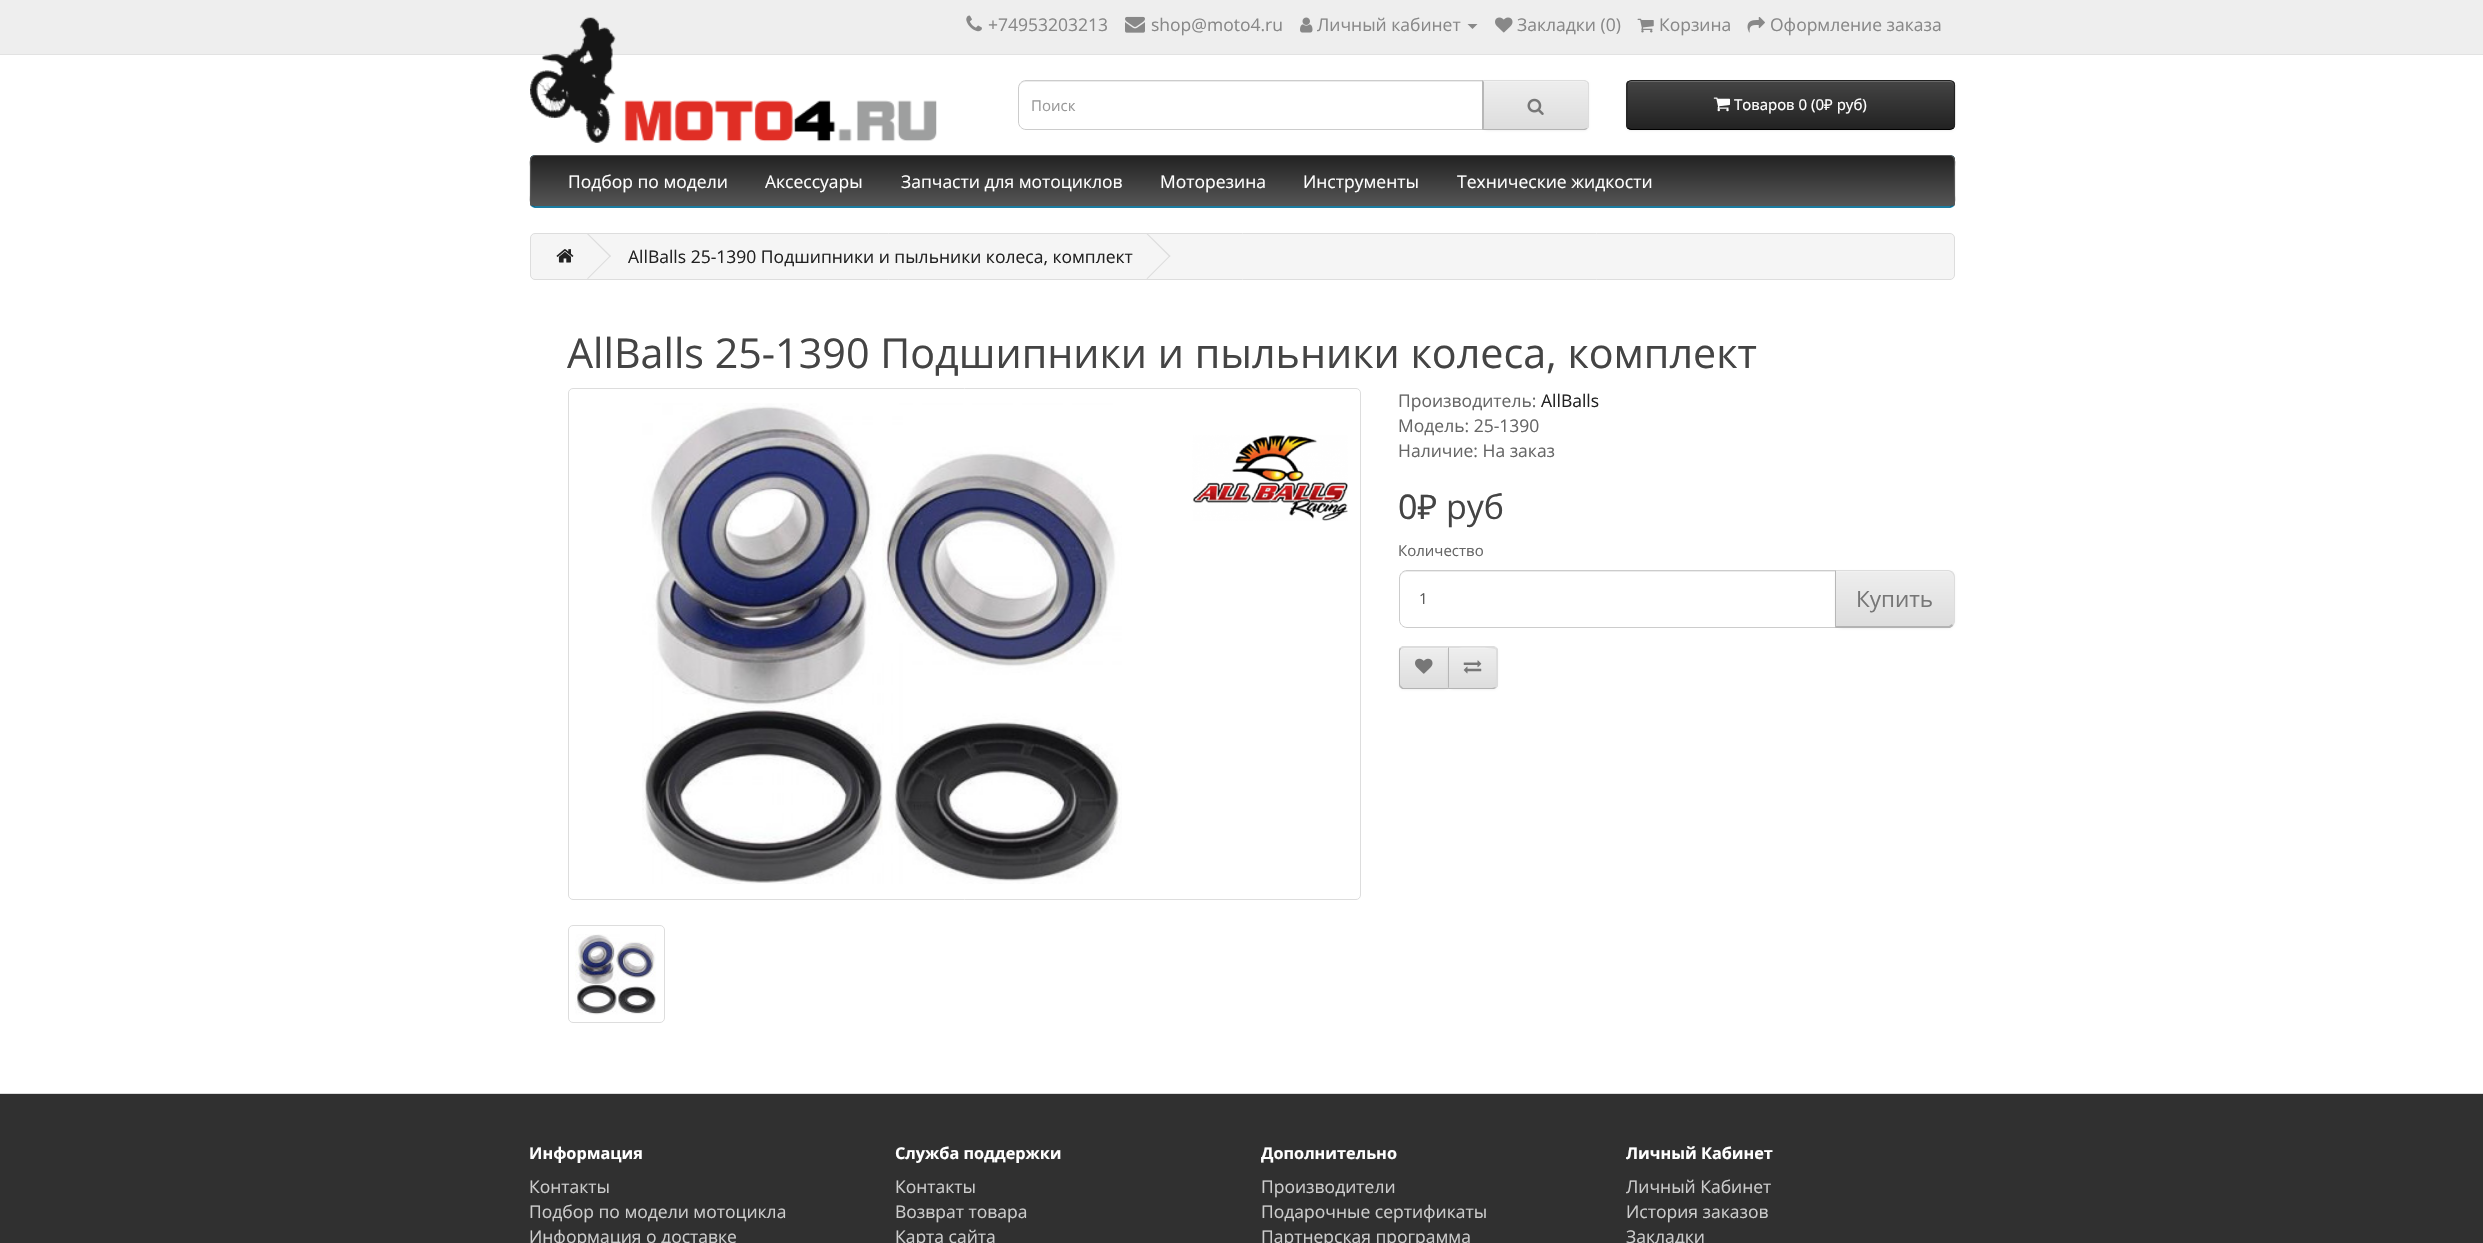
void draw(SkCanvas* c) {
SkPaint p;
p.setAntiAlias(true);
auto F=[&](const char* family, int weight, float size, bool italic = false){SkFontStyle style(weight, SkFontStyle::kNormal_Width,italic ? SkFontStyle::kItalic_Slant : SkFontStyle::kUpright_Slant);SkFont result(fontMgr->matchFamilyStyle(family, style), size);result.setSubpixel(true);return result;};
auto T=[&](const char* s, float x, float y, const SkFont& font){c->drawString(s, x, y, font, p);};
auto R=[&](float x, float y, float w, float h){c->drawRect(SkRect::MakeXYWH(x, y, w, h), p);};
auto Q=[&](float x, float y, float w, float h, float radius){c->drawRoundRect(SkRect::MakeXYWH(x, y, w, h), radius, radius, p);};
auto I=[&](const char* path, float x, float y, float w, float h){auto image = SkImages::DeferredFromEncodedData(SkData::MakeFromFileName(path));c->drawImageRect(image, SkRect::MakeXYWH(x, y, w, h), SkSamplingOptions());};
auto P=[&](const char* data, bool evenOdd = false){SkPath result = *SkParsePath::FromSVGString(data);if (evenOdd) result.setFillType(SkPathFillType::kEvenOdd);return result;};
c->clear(0xffffffff);
p.setColor(0xffeeeeee);
R(0,0,2483,54);
p.setColor(0xffe2e2e2);
R(0,54,2483,1);
I("1.png",966,15,16,17);
auto f1 = F("Open Sans",400,17.5);
p.setColor(0xff888888);
T("+74953203213",988,31,f1);
I("2.png",1125,16,20,17);
T("shop@moto4.ru",1151,31,f1);
I("3.png",1300,17,13,16);
T("Личный кабинет",1317,31,f1);
c->drawPath(P("M1467.5 24h10l-5 5z"),p);
I("4.png",1495,17,18,16);
T("Закладки (0)",1517,31,f1);
I("5.png",1637,18,17,15);
T("Корзина",1659,31,f1);
I("6.png",1747,17,18,16);
T("Оформление заказа",1770,31,f1);
I("7.png",530,17,407,126);
p.setColor(0xffececec);
c->drawPath(P("M1025 82h457v47h1v-48h-458c-5 0-6 4-6 8c0-4 3-7 6-7z"),p);
p.setStroke(true);
p.setStrokeWidth(1);
p.setColor(0xffcccccc);
c->drawPath(P("M1026 80.5h457.5v49h-457.5c-4 0-7.5-3.5-7.5-7.5v-34c0-4 3.5-7.5 7.5-7.5z"),p);
auto f2 = F("Open Sans",400,15);
p.setStroke(false);
p.setColor(0xff999999);
T("Поиск",1031,111,f2);
p.setColor(0x0d000000);
p.setMaskFilter(SkMaskFilter::MakeBlur(kNormal_SkBlurStyle, 1));
c->drawRoundRect(SkRect::MakeXYWH(1483,81,106,50),5,5,p);
p.setMaskFilter(nullptr);
c->save();
c->clipPath(P("M1483 80h101c3 0 5 2 5 5v40c0 3-2 5-5 5h-101z"),true);
{
const SkColor colors[] = {0xffeeeeee,0xffdddddd};
const float stops[] = {0,1};
const SkPoint ends[] = {{1536,81}, {1536,129}};
p.setShader(SkGradientShader::MakeLinear(ends, colors, stops, 2, SkTileMode::kClamp));
p.setAlpha(255);
}
R(1483,81,106,48);
c->restore();
p.setShader(nullptr);
p.setColor(0xfff1f1f1);
c->drawPath(P("M1484 82h100c2 0 4 2 4 4v-1c0-2-2-4-4-4h-100z"),p);
p.setColor(0xffdddddd);
c->drawPath(P("M1484 81h100l3 1v-1l-2-1h-103l2 2z"),p);
c->drawPath(P("M1589 127l-2 2v-1c0-1 1-2 1-3v-40c0-1-1-2-1-3v-1l2 2z"),p);
p.setColor(0xffb3b3b3);
c->drawPath(P("M1482 130h103l2-1v-1l-3 1h-100v-1z"),p);
p.setColor(0xffb7b7b7);
c->drawPath(P("M1482 130l2-2v-46l-2-2z"),p);
I("8.png",1527,98,17,17);
p.setColor(0x0d000000);
p.setMaskFilter(SkMaskFilter::MakeBlur(kNormal_SkBlurStyle, 1));
c->drawRoundRect(SkRect::MakeXYWH(1626,81,329,50),5,5,p);
p.setMaskFilter(nullptr);
c->save();
c->clipPath(P("M1631 80h319c3 0 5 2 5 5v40c0 3-2 5-5 5h-319c-3 0-5-2-5-5v-40c0-3 2-5 5-5z"),true);
{
const SkColor colors[] = {0xff444444,0xff222222};
const float stops[] = {0,1};
const SkPoint ends[] = {{1791,81}, {1791,129}};
p.setShader(SkGradientShader::MakeLinear(ends, colors, stops, 2, SkTileMode::kClamp));
p.setAlpha(255);
}
R(1626,81,329,48);
c->restore();
p.setShader(nullptr);
p.setColor(0xff696969);
c->drawPath(P("M1631 82h319c2 0 4 2 4 4v-1c0-2-2-4-4-4h-318c-2 0-4 2-4 4v1c0-2 1-4 3-4z"),p);
p.setStroke(true);
p.setStrokeWidth(1.2);
p.setColor(0xff000000);
c->drawPath(P("M1953 128c-.5 1-2 1.5-3 1.5h-319c-1 0-2-.5-3-1.5"),p);
p.setColor(0xff222222);
c->drawPath(P("M1628 128c-.5-.5-1-2-1-3v-40c0-1 .5-2.5 1-3c1-1 2-1.5 3-1.5h319c1 0 2.5 .5 3 1.5c1 .5 1.5 2 1.5 3v40c0 1-.5 2.5-1.5 3"),p);
I("9.png",1713,97,17,15);
auto f3 = F("Noto Sans",400,15);
p.setStroke(false);
p.setColor(0xffffffff);
T("Товаров 0 (0₽ руб)",1734,110,f3);
p.setColor(0xff229ac8);
Q(530,155,1425,53,5);
c->save();
c->clipPath(P("M535 155h1415c3 0 5 2 5 5v43c0 3-2 5-5 5h-1415c-3 0-5-2-5-5v-43c0-3 2-5 5-5z"),true);
{
const SkColor colors[] = {0xff222222,0xff565656};
const float stops[] = {0,1};
const SkPoint ends[] = {{1243,156}, {1243,206}};
p.setShader(SkGradientShader::MakeLinear(ends, colors, stops, 2, SkTileMode::kClamp));
p.setAlpha(255);
}
R(530,156,1425,50);
c->restore();
p.setStroke(true);
p.setShader(nullptr);
p.setColor(0xff145e7a);
c->drawPath(P("M1953 205.5l-3 1.5h-1415l-3-1.5"),p);
p.setColor(0xff565656);
c->drawPath(P("M532 205.5c-2.5-2.5-1.5-8-1.5-10v-28.5c0-3-1.5-11.5 4.5-11.5h1415c6 0 4.5 8.5 4.5 11.5v28.5c0 2 1 7.5-1.5 10"),p);
p.setStroke(false);
p.setColor(0xffffffff);
T("Подбор по модели",568,188,f1);
T("Аксессуары",765,188,f1);
T("Запчасти для мотоциклов",901,188,f1);
T("Моторезина",1160,188,f1);
T("Инструменты",1303,188,f1);
T("Технические жидкости",1457,188,f1);
p.setColor(0xfff5f5f5);
c->drawRoundRect(SkRect::MakeXYWH(530.5,233.5,1424,46),4.5,4.5,p);
p.setStroke(true);
p.setStrokeWidth(1);
p.setColor(0xffdddddd);
c->drawRoundRect(SkRect::MakeXYWH(530.5,233.5,1424,46),4.5,4.5,p);
I("10.png",556,249,18,14);
p.setStroke(false);
c->drawPath(P("M587 234l1-.5l23 22.5l-1 1z"),p);
c->drawPath(P("M587 278.5l23-23l1 .5l-23 23z"),p);
p.setColor(0xff222222);
T("AllBalls 25-1390 Подшипники и пыльники колеса, комплект",628,263,f1);
p.setColor(0xffdddddd);
c->drawPath(P("M1146.5 234l1-.5l23 22.5l-1 1z"),p);
c->drawPath(P("M1146.5 278.5l23-23l1 .5l-23 23z"),p);
auto f4 = F("Open Sans",400,41.25);
p.setColor(0xff444444);
T("AllBalls 25-1390 Подшипники и пыльники колеса, комплект",567,368,f4);
p.setStroke(true);
p.setColor(0xffdddddd);
c->drawRoundRect(SkRect::MakeXYWH(568.5,388.5,792,511),4.5,4.5,p);
I("11.png",642,403,480,481);
I("12.png",1192,435,156,86);
c->drawRoundRect(SkRect::MakeXYWH(568.5,925.5,96,97),4.5,4.5,p);
I("13.png",575,934,81,81);
p.setStroke(false);
p.setColor(0xff666666);
T("Производитель:",1398,407,f1);
p.setColor(0xff222222);
T("AllBalls",1541,407,f1);
p.setColor(0xff666666);
T("Модель: 25-1390",1398,432,f1);
T("Наличие: На заказ",1398,457,f1);
auto f5 = F("Noto Sans",400,34);
p.setColor(0xff444444);
T("0₽",1398,519,f5);
auto f6 = F("Open Sans",400,34);
T("руб",1446,519,f6);
p.setColor(0xff666666);
T("Количество",1398,556,f2);
p.setColor(0xffececec);
c->drawPath(P("M1406 572h429v-1h-429c-3 0-6 3-6 6v2c0-4 3-7 6-7z"),p);
p.setStroke(true);
p.setColor(0xffcccccc);
c->drawPath(P("M1407 570.5h428.5v57h-428.5c-4 0-7.5-3.5-7.5-7.5v-42c0-4 3.5-7.5 7.5-7.5z"),p);
p.setStroke(false);
p.setColor(0xff555555);
T("1",1419,604,f2);
p.setColor(0x0d000000);
p.setMaskFilter(SkMaskFilter::MakeBlur(kNormal_SkBlurStyle, 1));
c->drawRoundRect(SkRect::MakeXYWH(1835,571,120,58),8,8,p);
p.setMaskFilter(nullptr);
c->save();
c->clipPath(P("M1835 570h112c4.5 0 8 3.5 8 8v42c0 4.5-3.5 8-8 8h-112z"),true);
{
const SkColor colors[] = {0xffeeeeee,0xffdddddd};
const float stops[] = {0,1};
const SkPoint ends[] = {{1895,571}, {1895,626}};
p.setShader(SkGradientShader::MakeLinear(ends, colors, stops, 2, SkTileMode::kClamp));
p.setAlpha(255);
}
R(1836,571,119,55);
c->restore();
p.setShader(nullptr);
p.setColor(0xfff1f1f1);
c->drawPath(P("M1836 572h112c3 0 6 3 6 7v-2c0-3-3-6-6-6h-112z"),p);
p.setColor(0xffdddddd);
c->drawPath(P("M1835 570l1 1h113l3 2l1-1c-1-1-3-2-5-2z"),p);
c->drawPath(P("M1955 620v-42c0-3-1-5-2-6l-1 1c1 1 2 3 2 5v42c0 2-1 3-2 4l1 2c1-2 2-4 2-6z"),p);
p.setColor(0xffb3b3b3);
c->drawPath(P("M1950 628h-115l1-2h113l3-2l1 2z"),p);
p.setColor(0xffb7b7b7);
c->drawPath(P("M1835 570v58l1-2v-55z"),p);
auto f7 = F("Open Sans",400,22.5);
p.setColor(0xff777777);
T("Купить",1856,607,f7);
p.setColor(0x0d000000);
p.setMaskFilter(SkMaskFilter::MakeBlur(kNormal_SkBlurStyle, 1));
c->drawRoundRect(SkRect::MakeXYWH(1399,648,50,42),5,5,p);
p.setMaskFilter(nullptr);
c->save();
c->clipPath(P("M1404 646h45v43h-45c-3 0-5-2-5-5v-33c0-3 2-5 5-5z"),true);
{
const SkColor colors[] = {0xffeeeeee,0xffdddddd};
const float stops[] = {0,1};
const SkPoint ends[] = {{1424,648}, {1424,688}};
p.setShader(SkGradientShader::MakeLinear(ends, colors, stops, 2, SkTileMode::kClamp));
p.setAlpha(255);
}
R(1399,648,49,40);
c->restore();
p.setShader(nullptr);
p.setColor(0xfff1f1f1);
c->drawPath(P("M1404 649h44v-1h-44c-2 0-4 2-4 4c0-2 2-3 4-3z"),p);
p.setColor(0xffdddddd);
c->drawPath(P("M1404 648l-3 1l-1-1l2-2h47l-2 2z"),p);
c->drawPath(P("M1449 646l-2 2h1v40l1 1z"),p);
p.setColor(0xffb3b3b3);
c->drawPath(P("M1449 689h-47l-2-2l1-1l2 2h45z"),p);
p.setColor(0xffb7b7b7);
c->drawPath(P("M1400 687.5c-.5-1-1-2-1-3.5v-33c0-1.5 .5-2.5 1-3.5l1 1.5l-1 1.5v34l1 2z"),p);
I("14.png",1415,658,18,16);
p.setColor(0x0d000000);
p.setMaskFilter(SkMaskFilter::MakeBlur(kNormal_SkBlurStyle, 1));
c->drawRoundRect(SkRect::MakeXYWH(1448,648,50,42),5,5,p);
p.setMaskFilter(nullptr);
c->save();
c->clipPath(P("M1448 646h45c3 0 5 2 5 5v33c0 3-2 5-5 5h-45z"),true);
{
const SkColor colors[] = {0xffeeeeee,0xffdddddd};
const float stops[] = {0,1};
const SkPoint ends[] = {{1473,648}, {1473,688}};
p.setShader(SkGradientShader::MakeLinear(ends, colors, stops, 2, SkTileMode::kClamp));
p.setAlpha(255);
}
R(1448,648,50,40);
c->restore();
p.setShader(nullptr);
p.setColor(0xfff1f1f1);
c->drawPath(P("M1449 649h43c2 0 3 0 4 1c-1-1-2-2-4-2h-43z"),p);
p.setColor(0xffdddddd);
c->drawPath(P("M1448 647v-1h46l2 1l-1 2c-2-2-40-1-46-1z"),p);
c->drawPath(P("M1498 686l-2 2l-1-1c2-2 1-34 1-37l-1-1l1-2l2 2z"),p);
p.setColor(0xffb3b3b3);
c->drawPath(P("M1448 689l1-2v1h43c2 0 3-1 3-1l1 1l-2 1z"),p);
p.setColor(0xffb7b7b7);
c->drawPath(P("M1449 648v39l-1 1v-41z"),p);
I("15.png",1463,660,19,14);
p.setColor(0xff303030);
R(0,1094,2483,149);
p.setColor(0xffdddddd);
R(0,1093,2483,1);
auto f8 = F("Open Sans",700,16.25);
p.setColor(0xffffffff);
T("Информация",529,1159,f8);
p.setColor(0xffcccccc);
T("Контакты",529,1193,f1);
T("Подбор по модели мотоцикла",529,1218,f1);
T("Информация о доставке",529,1243,f1);
p.setColor(0xffffffff);
T("Служба поддержки",895,1159,f8);
p.setColor(0xffcccccc);
T("Контакты",895,1193,f1);
T("Возврат товара",895,1218,f1);
T("Карта сайта",895,1243,f1);
p.setColor(0xffffffff);
T("Дополнительно",1261,1159,f8);
p.setColor(0xffcccccc);
T("Производители",1261,1193,f1);
T("Подарочные сертификаты",1261,1218,f1);
T("Партнерская программа",1261,1243,f1);
p.setColor(0xffffffff);
T("Личный Кабинет",1626,1159,f8);
p.setColor(0xffcccccc);
T("Личный Кабинет",1626,1193,f1);
T("История заказов",1626,1218,f1);
T("Закладки",1626,1243,f1);
}
